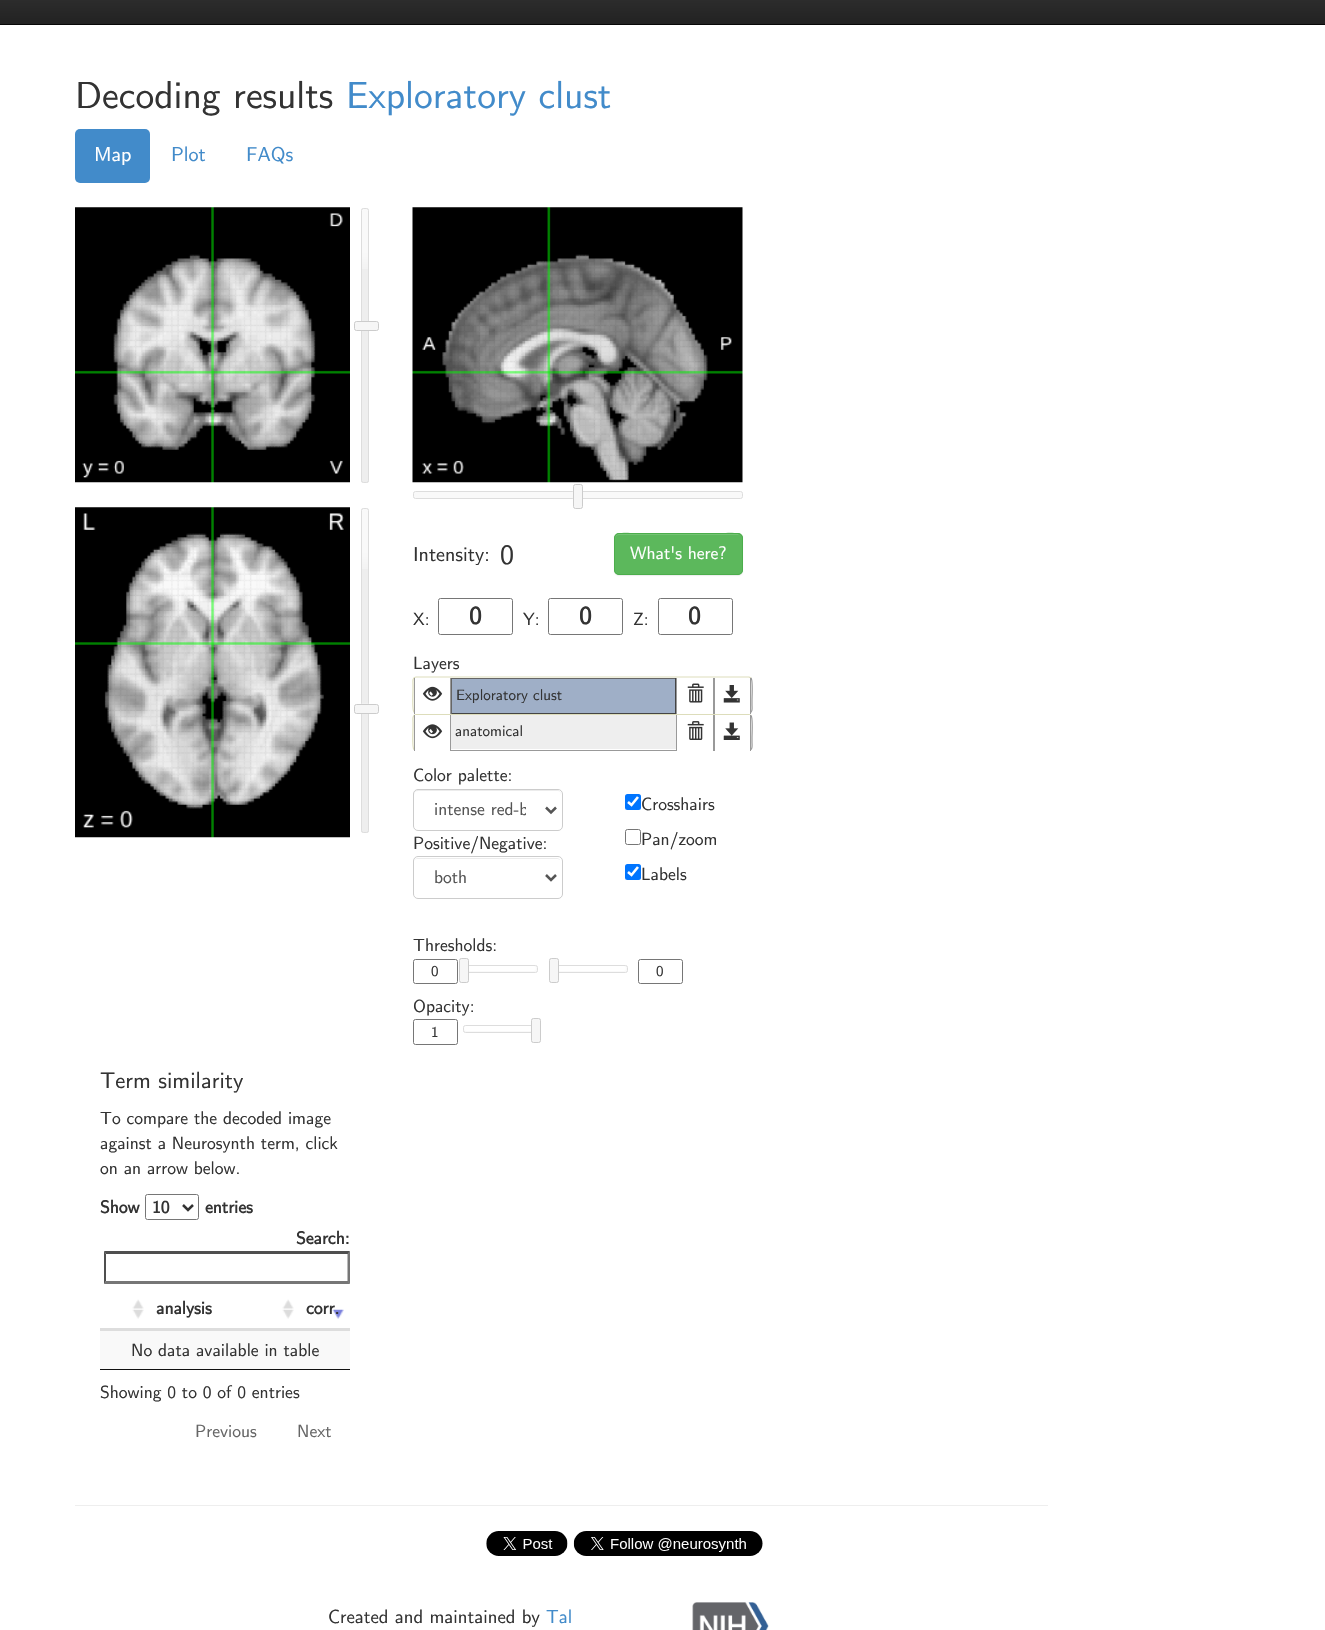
void draw(SkCanvas* c) {
SkPaint p;
p.setAntiAlias(true);
auto F=[&](const char* family, int weight, float size, bool italic = false){SkFontStyle style(weight, SkFontStyle::kNormal_Width,italic ? SkFontStyle::kItalic_Slant : SkFontStyle::kUpright_Slant);SkFont result(fontMgr->matchFamilyStyle(family, style), size);result.setSubpixel(true);return result;};
auto T=[&](const char* s, float x, float y, const SkFont& font){c->drawString(s, x, y, font, p);};
auto R=[&](float x, float y, float w, float h){c->drawRect(SkRect::MakeXYWH(x, y, w, h), p);};
auto Q=[&](float x, float y, float w, float h, float radius){c->drawRoundRect(SkRect::MakeXYWH(x, y, w, h), radius, radius, p);};
auto I=[&](const char* path, float x, float y, float w, float h){auto image = SkImages::DeferredFromEncodedData(SkData::MakeFromFileName(path));c->drawImageRect(image, SkRect::MakeXYWH(x, y, w, h), SkSamplingOptions());};
auto P=[&](const char* data, bool evenOdd = false){SkPath result = *SkParsePath::FromSVGString(data);if (evenOdd) result.setFillType(SkPathFillType::kEvenOdd);return result;};
c->clear(0xffffffff);
{
const SkColor colors[] = {0xff3c3c3c,0xff222222};
const float stops[] = {0,1};
const SkPoint ends[] = {{663,-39}, {663,24}};
p.setShader(SkGradientShader::MakeLinear(ends, colors, stops, 2, SkTileMode::kClamp));
p.setAlpha(255);
}
R(0,0,1325,24);
p.setShader(nullptr);
p.setColor(0xff080808);
R(0,24,1325,1);
auto f1 = F("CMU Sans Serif",500,37.5);
p.setColor(0xff333333);
T("Decoding results",75,108,f1);
p.setColor(0xff428bca);
T("Exploratory clust",346,108,f1);
Q(75,129,75,54,5);
auto f2 = F("CMU Sans Serif",500,20);
p.setColor(0xffffffff);
T("Map",94,161,f2);
p.setColor(0xff428bca);
T("Plot",171,161,f2);
T("FAQs",246,161,f2);
I("1.png",75,207,275,276);
p.setColor(0xffeeeeee);
Q(361,208,8,275,2.5);
I("2.png",361,208,8,61);
p.setStroke(true);
p.setStrokeWidth(1);
p.setColor(0xffdddddd);
c->drawRoundRect(SkRect::MakeXYWH(361.5,208.5,7,274),2,2,p);
p.setStroke(false);
p.setColor(0xfff6f6f6);
c->drawRoundRect(SkRect::MakeXYWH(354.5,321.5,24,9),2,2,p);
p.setStroke(true);
p.setColor(0xffcccccc);
c->drawRoundRect(SkRect::MakeXYWH(354.5,321.5,24,9),2,2,p);
I("3.png",75,507,275,331);
p.setStroke(false);
p.setColor(0xffeeeeee);
Q(361,508,8,325,2.5);
I("2.png",361,508,8,61);
p.setStroke(true);
p.setColor(0xffdddddd);
c->drawRoundRect(SkRect::MakeXYWH(361.5,508.5,7,324),2,2,p);
p.setStroke(false);
p.setColor(0xfff6f6f6);
c->drawRoundRect(SkRect::MakeXYWH(354.5,704.5,24,9),2,2,p);
p.setStroke(true);
p.setColor(0xffcccccc);
c->drawRoundRect(SkRect::MakeXYWH(354.5,704.5,24,9),2,2,p);
p.setStroke(false);
p.setColor(0x40fbfbfb);
R(361,703,8,1);
I("4.png",412,207,331,276);
p.setColor(0xfff9f9f9);
R(413,492,329,6);
p.setStroke(true);
p.setColor(0xffdddddd);
c->drawRoundRect(SkRect::MakeXYWH(413.5,491.5,329,7),2,2,p);
p.setStroke(false);
p.setColor(0xfff6f6f6);
c->drawRoundRect(SkRect::MakeXYWH(573.5,484.5,9,24),2,2,p);
p.setStroke(true);
p.setColor(0xffcccccc);
c->drawRoundRect(SkRect::MakeXYWH(573.5,484.5,9,24),2,2,p);
I("5.png",572,491,1,8);
p.setStroke(false);
p.setColor(0xff333333);
T("Intensity:",413,561,f2);
auto f3 = F("CMU Sans Serif",500,28);
T("0",500,564,f3);
p.setColor(0x12000000);
p.setMaskFilter(SkMaskFilter::MakeBlur(kNormal_SkBlurStyle, .5));
c->drawRoundRect(SkRect::MakeXYWH(614,534,129,42),5,5,p);
p.setMaskFilter(nullptr);
p.setColor(0xff5cb85c);
Q(614,533,129,42,5);
p.setColor(0xff74c374);
c->drawPath(P("M619 535h119c2 0 3 2 3 4c0-10-21-5-24-5h-78c-3 0-24-5-24 5c0-2 2-4 4-4z"),p);
p.setStroke(true);
p.setColor(0xff4cae4c);
c->drawRoundRect(SkRect::MakeXYWH(614.5,533.5,128,41),4.5,4.5,p);
auto f4 = F("CMU Sans Serif",500,17.5);
p.setStroke(false);
p.setColor(0xffffffff);
T("What's here?",630,559,f4);
p.setColor(0xff333333);
T("X:",413,625,f4);
p.setStroke(true);
p.setColor(0xff767676);
c->drawRoundRect(SkRect::MakeXYWH(438.5,598.5,74,36),2,2,p);
auto f5 = F("CMU Sans Serif",700,25);
p.setStroke(false);
p.setColor(0xff333333);
T("0",469,624,f5);
T("Y:",523,625,f4);
p.setStroke(true);
p.setColor(0xff767676);
c->drawRoundRect(SkRect::MakeXYWH(548.5,598.5,74,36),2,2,p);
p.setStroke(false);
p.setColor(0xff333333);
T("0",579,624,f5);
T("Z:",633,625,f4);
p.setStroke(true);
p.setColor(0xff767676);
c->drawRoundRect(SkRect::MakeXYWH(658.5,598.5,74,36),2,2,p);
p.setStroke(false);
p.setColor(0xff333333);
T("0",688,624,f5);
T("Layers",413,669,f4);
p.setStroke(true);
p.setStrokeWidth(1.2);
p.setColor(0xff999999);
c->drawPath(P("M751 678c2 2 1 18.5 1 22v5c0 2.5 1 8-3 8h-333l-2-1"),p);
p.setColor(0xffddddbb);
c->drawPath(P("M414 712c-2-2-1-18.5-1-22v-5c0-2.5-1-8 3-8h333l2 1"),p);
p.setStroke(false);
p.setColor(0xffffffff);
R(415,711,35,3);
p.setColor(0xff999999);
R(450,678,1,36);
R(414,678,1,36);
I("6.png",422,686,21,15);
p.setColor(0xff9fafc7);
R(452,679,223,34);
p.setColor(0xff666666);
R(451,678,225,1);
p.setColor(0xff444444);
R(675,678,1,36);
R(451,713,225,1);
p.setColor(0xff666666);
R(451,678,1,36);
auto f6 = F("CMU Sans Serif",500,15);
p.setColor(0xff333333);
T("Exploratory clust",456,700,f6);
p.setColor(0xffffffff);
R(677,712,36,2);
p.setColor(0xff999999);
R(713,678,2,36);
R(676,678,1,36);
I("7.png",687,683,17,20);
p.setColor(0xffffffff);
R(715,712,35,2);
p.setColor(0xff999999);
R(750,678,1,36);
I("8.png",723,685,17,18);
p.setStroke(true);
c->drawPath(P("M751 715.5c2 2 1 18.5 1 22v5c0 2.5 1 8-3 8h-333l-2-1"),p);
p.setColor(0xffddddbb);
c->drawPath(P("M414 749.5c-2-2-1-18.5-1-22v-5c0-2.5-1-8 3-8h333l2 1"),p);
p.setStroke(false);
p.setColor(0xffffffff);
R(415,715,35,36);
p.setColor(0xff999999);
R(450,715,1,36);
R(414,715,1,36);
I("9.png",422,724,21,15);
p.setColor(0xffeeeeee);
R(451,715,225,34);
p.setColor(0xff333333);
T("anatomical",455,736,f6);
p.setColor(0xffffffff);
R(677,715,36,36);
p.setColor(0xff999999);
R(713,715,2,36);
R(676,715,1,36);
I("10.png",687,721,17,19);
p.setColor(0xffffffff);
R(715,715,35,36);
p.setColor(0xff999999);
R(750,715,1,36);
I("11.png",723,722,17,18);
p.setColor(0xff333333);
T("Color palette:",413,781,f4);
p.setColor(0xffececec);
c->drawPath(P("M418 791h140c2 0 3 2 3 4v-1c0-2-2-4-4-4h-139c-2 0-4 2-4 4v1c0-2 1-4 4-4z"),p);
p.setStroke(true);
p.setStrokeWidth(1);
p.setColor(0xffcccccc);
c->drawRoundRect(SkRect::MakeXYWH(413.5,789.5,149,41),4.5,4.5,p);
p.setStrokeWidth(2.5);
p.setColor(0xff555555);
c->drawPath(P("M546 807.5l5 5l5-5"),p);
c->save();
c->clipRect(SkRect::MakeXYWH(434,798,92,23));
p.setStroke(false);
T("intense red-b",434,815,f4);
c->restore();
p.setColor(0xff333333);
T("Positive/Negative:",413,849,f4);
p.setColor(0xffececec);
c->drawPath(P("M418 859h140l2 1c0-1-2-2-3-2h-139c-2 0-3 1-4 2c1-1 2-1 4-1z"),p);
p.setStroke(true);
p.setStrokeWidth(1);
p.setColor(0xffcccccc);
c->drawRoundRect(SkRect::MakeXYWH(413.5,856.5,149,42),4.5,4.5,p);
p.setStrokeWidth(2.5);
p.setColor(0xff555555);
c->drawPath(P("M546 875l5 5l5-5"),p);
p.setStroke(false);
T("both",434,883,f4);
p.setColor(0xff0075ff);
Q(625,794,16,16,2.5);
p.setStroke(true);
p.setStrokeWidth(2.6);
p.setColor(0xffffffff);
c->drawPath(P("M628 802l3.5 3l6.5-8"),p);
p.setStroke(false);
p.setColor(0xff333333);
T("Crosshairs",641,810,f4);
p.setStroke(true);
p.setStrokeWidth(1);
p.setColor(0xff767676);
c->drawRoundRect(SkRect::MakeXYWH(625.5,829.5,15,15),2,2,p);
p.setStroke(false);
p.setColor(0xff333333);
T("Pan/zoom",641,845,f4);
p.setColor(0xff0075ff);
Q(625,864,16,16,2.5);
p.setStroke(true);
p.setStrokeWidth(2.6);
p.setColor(0xffffffff);
c->drawPath(P("M628 872l3.5 3l6.5-8"),p);
p.setStroke(false);
p.setColor(0xff333333);
T("Labels",641,880,f4);
T("Thresholds:",413,951,f4);
p.setStroke(true);
p.setStrokeWidth(1);
p.setColor(0xff767676);
c->drawRoundRect(SkRect::MakeXYWH(413.5,959.5,44,24),2,2,p);
p.setStroke(false);
p.setColor(0xff333333);
T("0",431,976,f6);
p.setColor(0xfff9f9f9);
R(463,966,74,6);
p.setStroke(true);
p.setColor(0xffdddddd);
c->drawRoundRect(SkRect::MakeXYWH(463.5,965.5,74,7),2,2,p);
p.setStroke(false);
p.setColor(0xffffffff);
Q(464,966,72,5,2.5);
p.setColor(0xfff6f6f6);
Q(459,958,10,25,2.5);
p.setColor(0xfffafafa);
R(459,958,1,1);
p.setStroke(true);
p.setColor(0xffcccccc);
c->drawRoundRect(SkRect::MakeXYWH(459.5,958.5,9,24),2,2,p);
p.setStroke(false);
p.setColor(0xfff9f9f9);
R(553,966,74,6);
p.setStroke(true);
p.setColor(0xffdddddd);
c->drawRoundRect(SkRect::MakeXYWH(553.5,965.5,74,7),2,2,p);
p.setStroke(false);
p.setColor(0xffffffff);
Q(554,966,72,5,2.5);
p.setColor(0xfff6f6f6);
Q(549,958,10,25,2.5);
p.setColor(0xfffafafa);
R(549,958,1,1);
p.setStroke(true);
p.setColor(0xffcccccc);
c->drawRoundRect(SkRect::MakeXYWH(549.5,958.5,9,24),2,2,p);
p.setColor(0xff767676);
c->drawRoundRect(SkRect::MakeXYWH(638.5,959.5,44,24),2,2,p);
p.setStroke(false);
p.setColor(0xff333333);
T("0",656,976,f6);
T("Opacity:",413,1012,f4);
p.setStroke(true);
p.setColor(0xff767676);
c->drawRoundRect(SkRect::MakeXYWH(413.5,1019.5,44,25),2,2,p);
p.setStroke(false);
p.setColor(0xff333333);
T("1",431,1037,f6);
p.setColor(0xfff9f9f9);
R(463,1026,74,6);
p.setStroke(true);
p.setColor(0xffdddddd);
c->drawRoundRect(SkRect::MakeXYWH(463.5,1025.5,74,7),2,2,p);
p.setStroke(false);
p.setColor(0xffffffff);
Q(464,1026,72,5,2.5);
p.setColor(0xfff6f6f6);
Q(531,1018,10,25,2.5);
p.setColor(0xfffafafa);
R(540,1018,1,1);
p.setStroke(true);
p.setColor(0xffcccccc);
c->drawRoundRect(SkRect::MakeXYWH(531.5,1018.5,9,24),2,2,p);
auto f7 = F("CMU Sans Serif",500,22.5);
p.setStroke(false);
p.setColor(0xff333333);
T("Term similarity",100,1088,f7);
T("To compare the decoded image",100,1124,f4);
T("against a Neurosynth term, click",100,1149,f4);
T("on an arrow below.",100,1174,f4);
auto f8 = F("CMU Sans Serif",700,17.5);
T("Show",100,1213,f8);
p.setStroke(true);
p.setColor(0xff767676);
c->drawRoundRect(SkRect::MakeXYWH(145.5,1194.5,53,25),2,2,p);
p.setStrokeWidth(2.5);
p.setColor(0xff333333);
c->drawPath(P("M183 1205l5 5l5-5"),p);
p.setStroke(false);
T("10",152,1213,f8);
T("entries",205,1213,f8);
T("Search:",296,1244,f8);
p.setColor(0xff4f4f4f);
c->drawPath(P("M104 1251h246l-2 3h-242z"),p);
p.setColor(0xff767676);
c->drawPath(P("M350 1251v33l-2.5-3v-27z"),p);
c->drawPath(P("M350 1284h-246l2-3h242z"),p);
p.setColor(0xff4f4f4f);
c->drawPath(P("M104 1284v-33l2 3v27z"),p);
p.setColor(0xff111111);
R(100,1369,250,1);
I("12.png",132,1299,12,20);
p.setColor(0xffdddddd);
R(100,1328,250,3);
I("12.png",282,1299,12,20);
p.setColor(0xff333333);
T("analysis",156,1314,f8);
I("13.png",332,1309,12,10);
T("corr.",306,1314,f8);
p.setColor(0xfff9f9f9);
R(100,1331,250,38);
p.setColor(0xff333333);
T("No data available in table",131,1356,f4);
T("Showing 0 to 0 of 0 entries",100,1398,f4);
p.setColor(0xff666666);
T("Previous",195,1437,f4);
T("Next",297,1437,f4);
p.setColor(0xffeeeeee);
R(75,1505,973,1);
I("14.png",486,1531,82,25);
I("15.png",573,1531,190,25);
auto f9 = F("CMU Sans Serif",500,18.75);
p.setColor(0xff333333);
T("Created and maintained by",328,1623,f9);
p.setColor(0xff428bca);
T("Tal",546,1623,f9);
I("16.png",692,1602,77,28);
}
